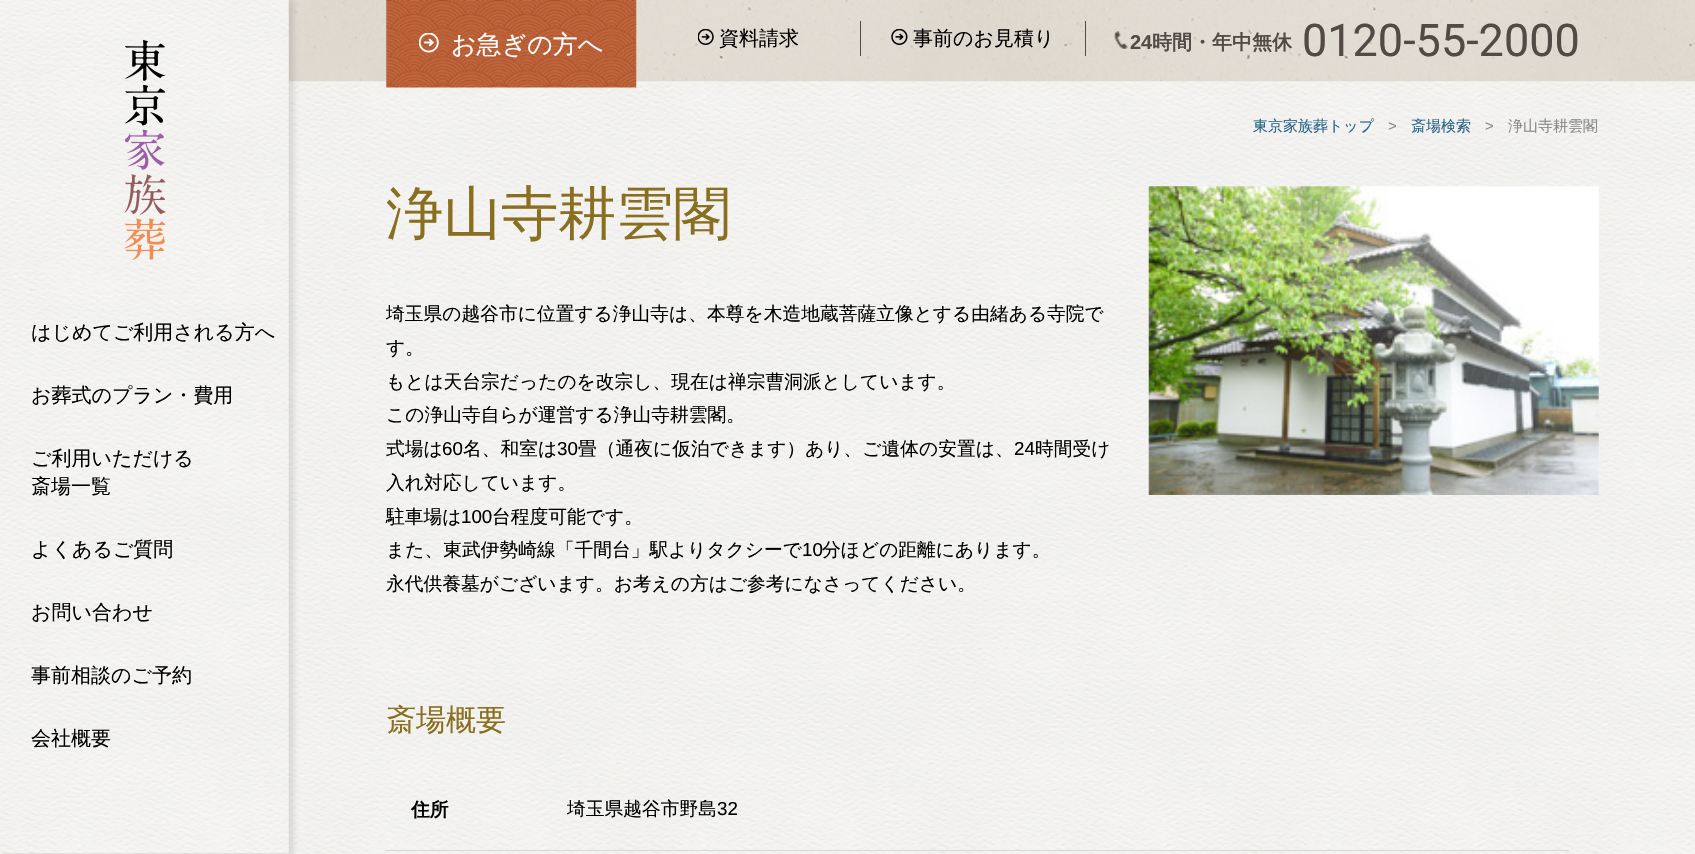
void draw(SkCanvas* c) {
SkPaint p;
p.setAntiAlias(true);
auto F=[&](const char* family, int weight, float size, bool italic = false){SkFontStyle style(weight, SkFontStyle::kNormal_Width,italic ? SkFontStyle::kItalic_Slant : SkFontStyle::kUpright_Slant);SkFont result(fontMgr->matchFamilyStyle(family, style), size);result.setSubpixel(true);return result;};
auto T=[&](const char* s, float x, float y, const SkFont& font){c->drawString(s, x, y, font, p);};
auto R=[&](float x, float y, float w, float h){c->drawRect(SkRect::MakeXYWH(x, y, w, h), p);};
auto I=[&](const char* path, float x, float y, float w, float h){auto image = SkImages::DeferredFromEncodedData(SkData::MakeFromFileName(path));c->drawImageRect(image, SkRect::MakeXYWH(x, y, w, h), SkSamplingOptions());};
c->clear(0xffffffff);
I("1.png",0,81,1695,773);
I("2.png",288,0,1407,82);
I("3.png",386,0,251,88);
I("4.png",419,33,20,20);
auto f1 = F("WenQuanYi Zen Hei",500,25);
p.setColor(0xffffffff);
T("お急ぎの方へ",451,53,f1);
p.setColor(0xff534b46);
R(860,21,1,35);
I("5.png",698,29,16,16);
auto f2 = F("WenQuanYi Zen Hei",500,20);
p.setColor(0xff000000);
T("資料請求",719,45,f2);
p.setColor(0xff534b46);
R(1085,21,1,35);
I("6.png",891,29,17,16);
p.setColor(0xff000000);
T("事前のお見積り",913,45,f2);
I("7.png",1114,31,14,18);
auto f3 = F("Liberation Sans",700,20);
p.setColor(0xff534a46);
T("24",1130,49,f3);
auto f4 = F("WenQuanYi Zen Hei",700,20);
T("時間・年中無休",1152,49,f4);
auto f5 = F("Roboto",400,45);
T("0120-55-2000",1302,56,f5);
p.setColor(0x1a000000);
p.setMaskFilter(SkMaskFilter::MakeBlur(kNormal_SkBlurStyle, 2.5));
c->drawRect(SkRect::MakeXYWH(5,0,289,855),p);
p.setMaskFilter(nullptr);
I("8.png",0,0,289,853);
I("9.png",124,40,42,220);
p.setColor(0xff000000);
T("はじめてご利用される方へ",31,339,f2);
T("お葬式のプラン・費用",31,402,f2);
T("ご利用いただける",31,465,f2);
T("斎場一覧",31,493,f2);
T("よくあるご質問",31,556,f2);
T("お問い合わせ",31,619,f2);
T("事前相談のご予約",31,682,f2);
T("会社概要",31,745,f2);
auto f6 = F("WenQuanYi Zen Hei",500,15);
p.setColor(0xff266485);
T("東京家族葬トップ",1253,131,f6);
auto f7 = F("Liberation Sans",400,15);
p.setColor(0xff888888);
T(">",1388,131,f7);
p.setColor(0xff266485);
T("斎場検索",1411,131,f6);
p.setColor(0xff888888);
T(">",1485,131,f7);
T("浄山寺耕雲閣",1508,131,f6);
auto f8 = F("WenQuanYi Zen Hei",500,57.5);
p.setColor(0xff896f1f);
T("浄山寺耕雲閣",386,233,f8);
auto f9 = F("WenQuanYi Zen Hei",500,18.75);
p.setColor(0xff000000);
T("埼玉県の越谷市に位置する浄山寺は、本尊を木造地蔵菩薩立像とする由緒ある寺院で",386,320,f9);
T("す。",386,354,f9);
T("もとは天台宗だったのを改宗し、現在は禅宗曹洞派としています。",386,388,f9);
T("この浄山寺自らが運営する浄山寺耕雲閣。",386,421,f9);
T("式場は",386,455,f9);
auto f10 = F("Liberation Sans",400,18.75);
T("60",442,455,f10);
T("名、和室は",463,455,f9);
T("30",557,455,f10);
T("畳（通夜に仮泊できます）あり、ご遺体の安置は、",578,455,f9);
T("24",1014,455,f10);
T("時間受け",1035,455,f9);
T("入れ対応しています。",386,489,f9);
T("駐車場は",386,523,f9);
T("100",461,523,f10);
T("台程度可能です。",492,523,f9);
T("また、東武伊勢崎線「千間台」駅よりタクシーで",386,556,f9);
T("10",802,556,f10);
T("分ほどの距離にあります。",822,556,f9);
T("永代供養墓がございます。お考えの方はご参考になさってください。",386,590,f9);
I("10.png",1148,186,451,309);
auto f11 = F("WenQuanYi Zen Hei",500,30);
p.setColor(0xff896f1f);
T("斎場概要",386,730,f11);
auto f12 = F("WenQuanYi Zen Hei",700,18.75);
p.setColor(0xff000000);
T("住所",411,816,f12);
T("埼玉県越谷市野島",567,815,f9);
T("32",717,815,f10);
p.setColor(0xffd8d8d8);
R(385,850,1184,1);
}
